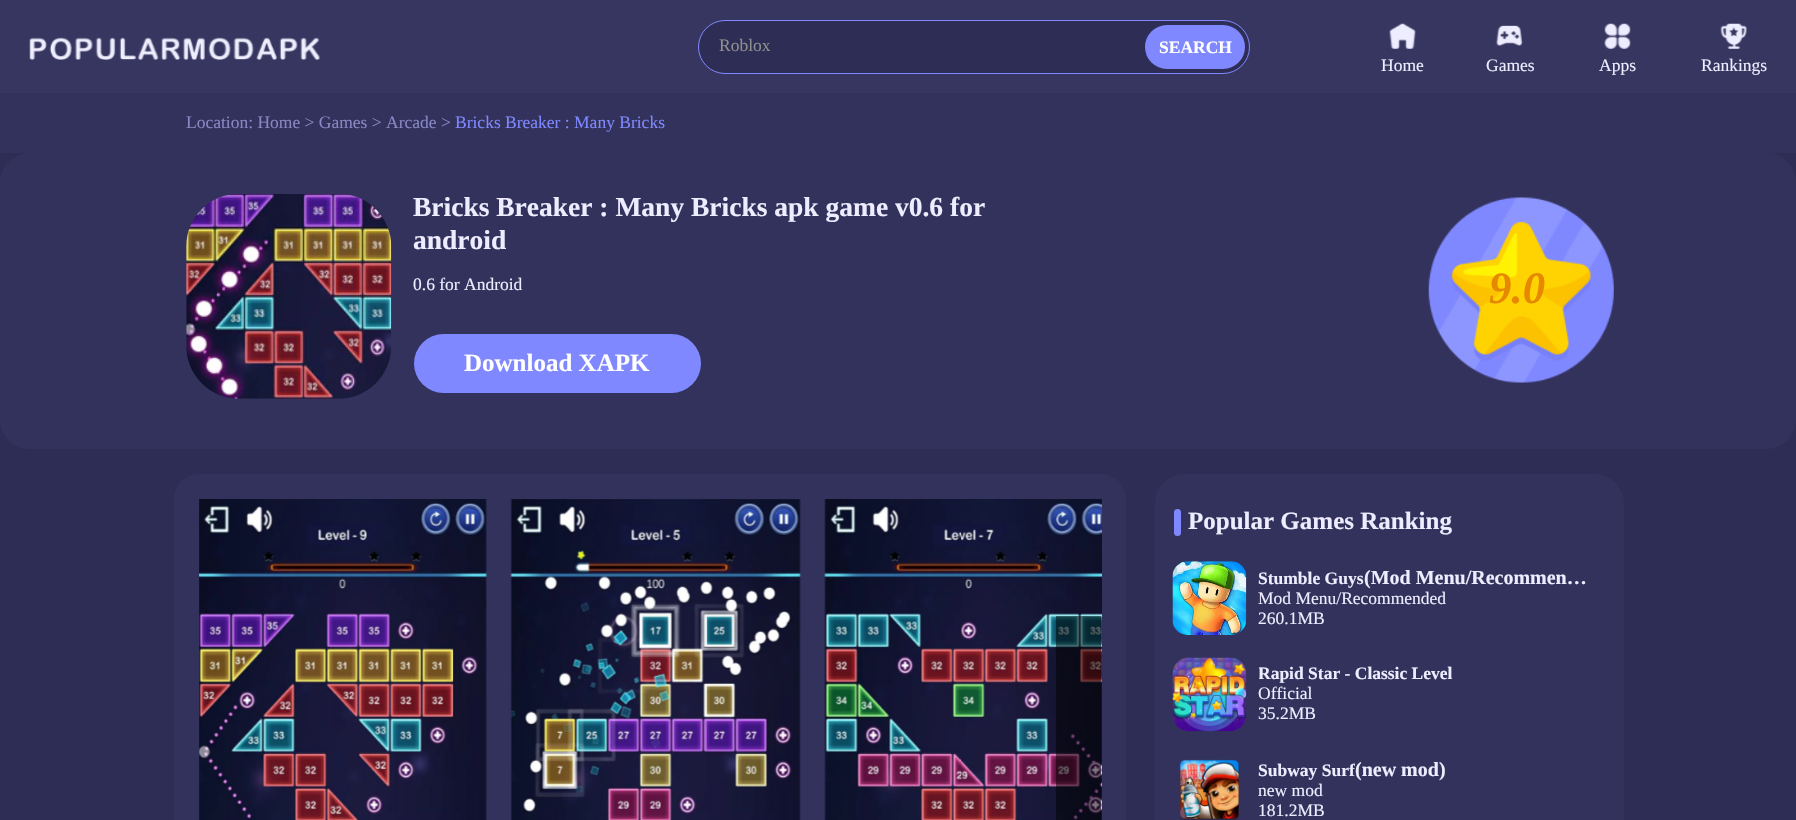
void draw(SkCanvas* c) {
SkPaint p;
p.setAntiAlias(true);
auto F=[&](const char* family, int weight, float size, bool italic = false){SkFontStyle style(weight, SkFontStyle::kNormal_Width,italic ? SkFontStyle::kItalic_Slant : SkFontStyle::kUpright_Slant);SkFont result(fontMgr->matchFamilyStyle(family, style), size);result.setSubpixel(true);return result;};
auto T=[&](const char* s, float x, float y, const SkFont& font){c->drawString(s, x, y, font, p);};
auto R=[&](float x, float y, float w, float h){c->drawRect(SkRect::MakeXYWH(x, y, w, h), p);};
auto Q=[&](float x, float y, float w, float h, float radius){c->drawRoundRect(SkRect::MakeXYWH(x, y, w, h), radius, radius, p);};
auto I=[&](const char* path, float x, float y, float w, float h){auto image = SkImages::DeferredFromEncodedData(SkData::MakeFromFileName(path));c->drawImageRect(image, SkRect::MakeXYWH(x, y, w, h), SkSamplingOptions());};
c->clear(0xff2e2d55);
p.setColor(0xff373660);
R(0,0,1796,93);
I("1.png",29,37,292,23);
p.setColor(0xff2e2d55);
c->drawRoundRect(SkRect::MakeXYWH(698.5,20.5,551,53),26.5,26.5,p);
p.setStroke(true);
p.setStrokeWidth(1);
p.setColor(0xff7f88ff);
c->drawRoundRect(SkRect::MakeXYWH(698.5,20.5,551,53),26.5,26.5,p);
auto f1 = F("Liberation Serif",400,17.5);
p.setStroke(false);
p.setColor(0xff8f8f8f);
T("Roblox",719,51,f1);
p.setColor(0xff7f88ff);
Q(1145,25,100,44,22);
auto f2 = F("Liberation Serif",700,17.5);
p.setColor(0xffffffff);
T("SEARCH",1159,53,f2);
I("2.png",1389,23,27,26);
p.setColor(0xffeeedff);
T("Home",1381,71,f1);
I("3.png",1495,25,28,21);
T("Games",1486,71,f1);
I("4.png",1604,23,27,26);
T("Apps",1599,71,f1);
I("5.png",1720,23,27,26);
T("Rankings",1701,71,f1);
p.setColor(0xff33325c);
R(0,93,1796,60);
p.setColor(0xff8788c3);
T("Location: Home > Games > Arcade",186,128,f1);
T(">",441,128,f1);
p.setColor(0xff7f88ff);
T("Bricks Breaker : Many Bricks",455,128,f1);
p.setColor(0xff33325c);
Q(0,153,1796,296,30);
I("6.png",186,194,206,205);
auto f3 = F("Liberation Serif",700,27.5);
p.setColor(0xffeeedff);
T("Bricks Breaker : Many Bricks apk game v0.6 for",413,216,f3);
T("android",413,249,f3);
T("0.6 for Android",413,290,f1);
p.setColor(0xff7f88ff);
Q(414,334,287,59,29.5);
auto f4 = F("Liberation Serif",700,25);
p.setColor(0xffffffff);
T("Download XAPK",464,371,f4);
I("7.png",1428,197,186,186);
auto f5 = F("Liberation Serif",700,45,true);
p.setColor(0xffe68800);
T("9.0",1489,303,f5);
p.setColor(0xff33325c);
Q(174,474,952,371,25);
I("8.png",199,499,288,321);
I("9.png",510,499,291,321);
I("10.png",824,499,278,321);
p.setColor(0x80000000);
R(1056,616,45,204);
p.setColor(0xff33325c);
Q(1155,474,469,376,30);
p.setColor(0xff7f88ff);
Q(1174,509,7,27,3.5);
p.setColor(0xffeeedff);
T("Popular Games Ranking",1188,529,f4);
I("11.png",1172,561,75,74);
T("Stumble Guys",1258,584,f2);
auto f6 = F("Liberation Serif",700,20);
T("(Mod Menu/Recommen…",1364,584,f6);
T("Mod Menu/Recommended",1258,604,f1);
T("260.1MB",1258,624,f1);
I("12.png",1172,657,75,75);
c->save();
c->clipRect(SkRect::MakeXYWH(1259,664,337,20));
T("Rapid Star - Classic Level",1258,679,f2);
c->restore();
T("Official",1258,699,f1);
T("35.2MB",1258,719,f1);
I("13.png",1179,759,60,61);
T("Subway Surf",1258,776,f2);
T("(new mod)",1355,776,f6);
T("new mod",1258,796,f1);
T("181.2MB",1258,816,f1);
}
